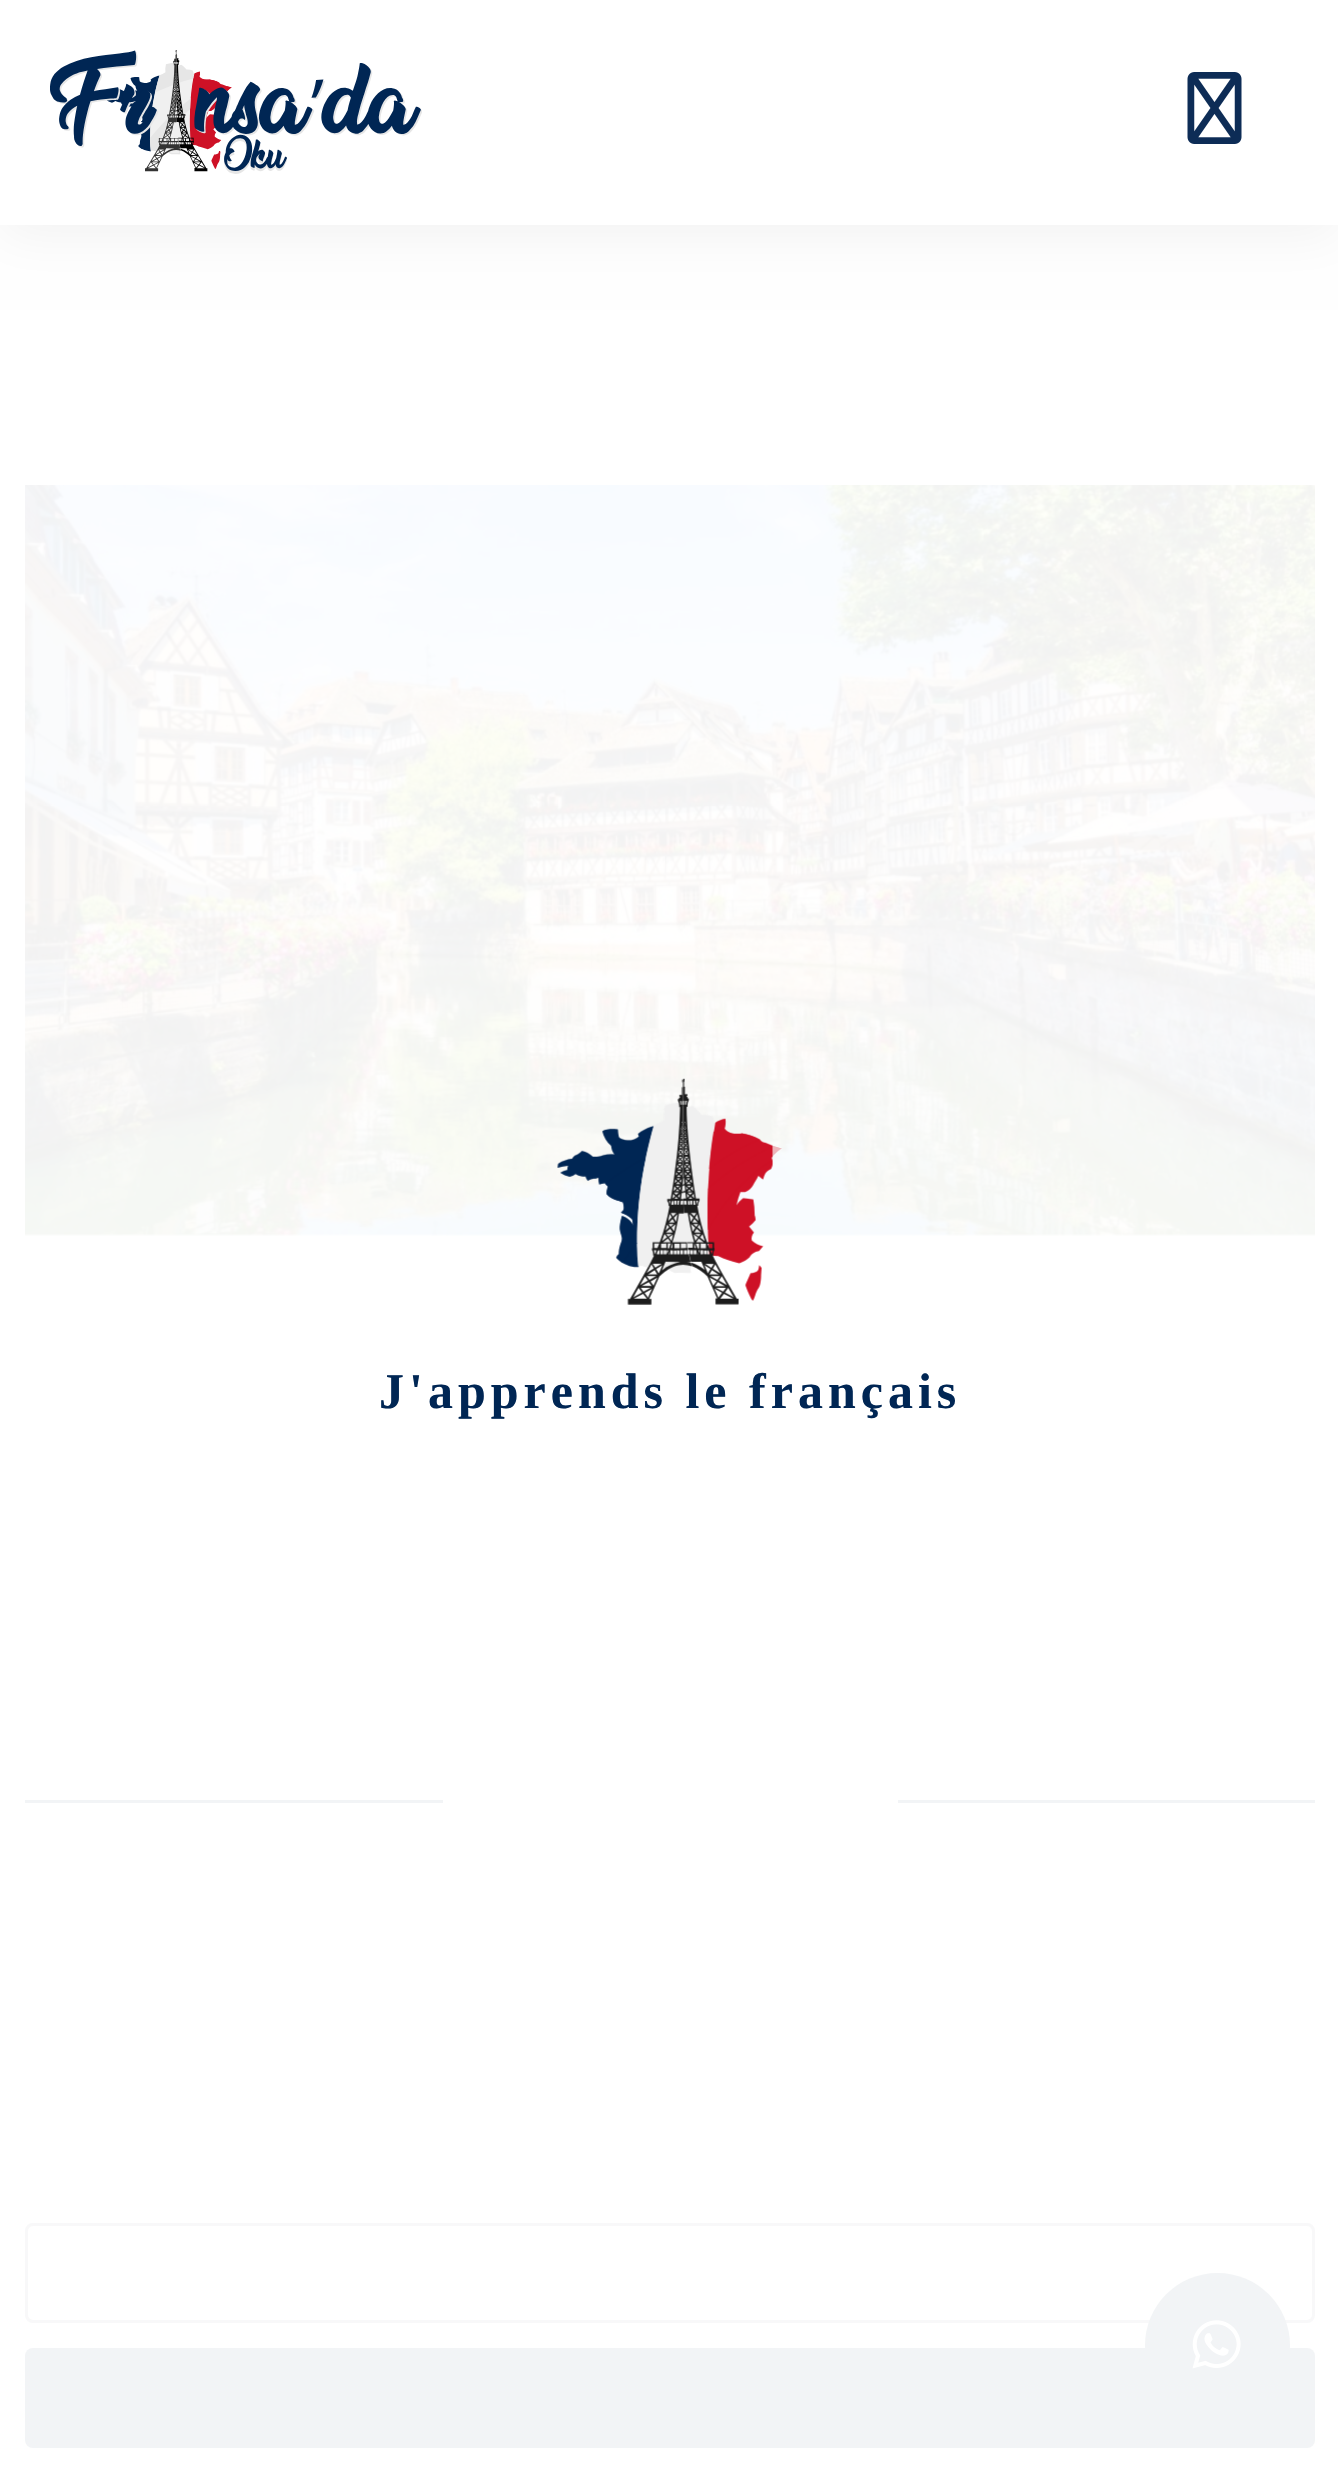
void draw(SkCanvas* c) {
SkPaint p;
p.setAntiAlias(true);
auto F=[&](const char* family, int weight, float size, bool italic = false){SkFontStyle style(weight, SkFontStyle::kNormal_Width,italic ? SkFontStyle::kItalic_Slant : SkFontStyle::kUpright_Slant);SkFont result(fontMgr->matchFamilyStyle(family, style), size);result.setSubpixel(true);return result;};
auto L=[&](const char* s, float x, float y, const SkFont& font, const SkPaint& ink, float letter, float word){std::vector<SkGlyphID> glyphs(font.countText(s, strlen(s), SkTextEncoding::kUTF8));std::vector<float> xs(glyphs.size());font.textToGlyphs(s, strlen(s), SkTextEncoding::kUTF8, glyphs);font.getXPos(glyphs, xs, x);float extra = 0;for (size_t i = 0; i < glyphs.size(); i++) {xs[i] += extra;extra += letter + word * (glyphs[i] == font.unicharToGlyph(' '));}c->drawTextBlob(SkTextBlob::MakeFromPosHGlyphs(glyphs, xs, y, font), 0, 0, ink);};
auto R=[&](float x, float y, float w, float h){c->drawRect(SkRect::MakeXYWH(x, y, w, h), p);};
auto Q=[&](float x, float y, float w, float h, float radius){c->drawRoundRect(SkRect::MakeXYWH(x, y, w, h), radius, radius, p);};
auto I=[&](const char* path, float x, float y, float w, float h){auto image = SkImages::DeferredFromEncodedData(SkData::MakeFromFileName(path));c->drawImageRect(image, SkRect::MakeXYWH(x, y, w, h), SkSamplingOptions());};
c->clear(0xffffffff);
p.setColor(0x0d000000);
p.setMaskFilter(SkMaskFilter::MakeBlur(kNormal_SkBlurStyle, 25));
c->drawRect(SkRect::MakeXYWH(0,10,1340,225),p);
p.setMaskFilter(nullptr);
p.setColor(0xffffffff);
R(0,0,1338,225);
I("1.png",50,50,372,124);
I("2.png",1187,72,55,72);
I("3.png",25,485,1290,751);
I("5.png",557,1079,225,226);
I("4.png",557,1078,216,227);
auto f1 = F("Liberation Serif",700,50);
p.setColor(0xff002654);
L("J'apprends le français",379,1408,f1,p,5,0);
p.setColor(0xfff2f4f6);
R(25,1800,418,3);
R(898,1800,417,3);
p.setStroke(true);
p.setStrokeWidth(3);
p.setColor(0xfff8f8f9);
c->drawRoundRect(SkRect::MakeXYWH(26.5,2224.5,1287,97),6.5,6.5,p);
p.setStroke(false);
p.setColor(0xfff2f4f6);
Q(25,2348,1290,100,8);
c->drawCircle(1217.5,2345.5,72.5,p);
I("6.png",1192,2320,49,49);
}
